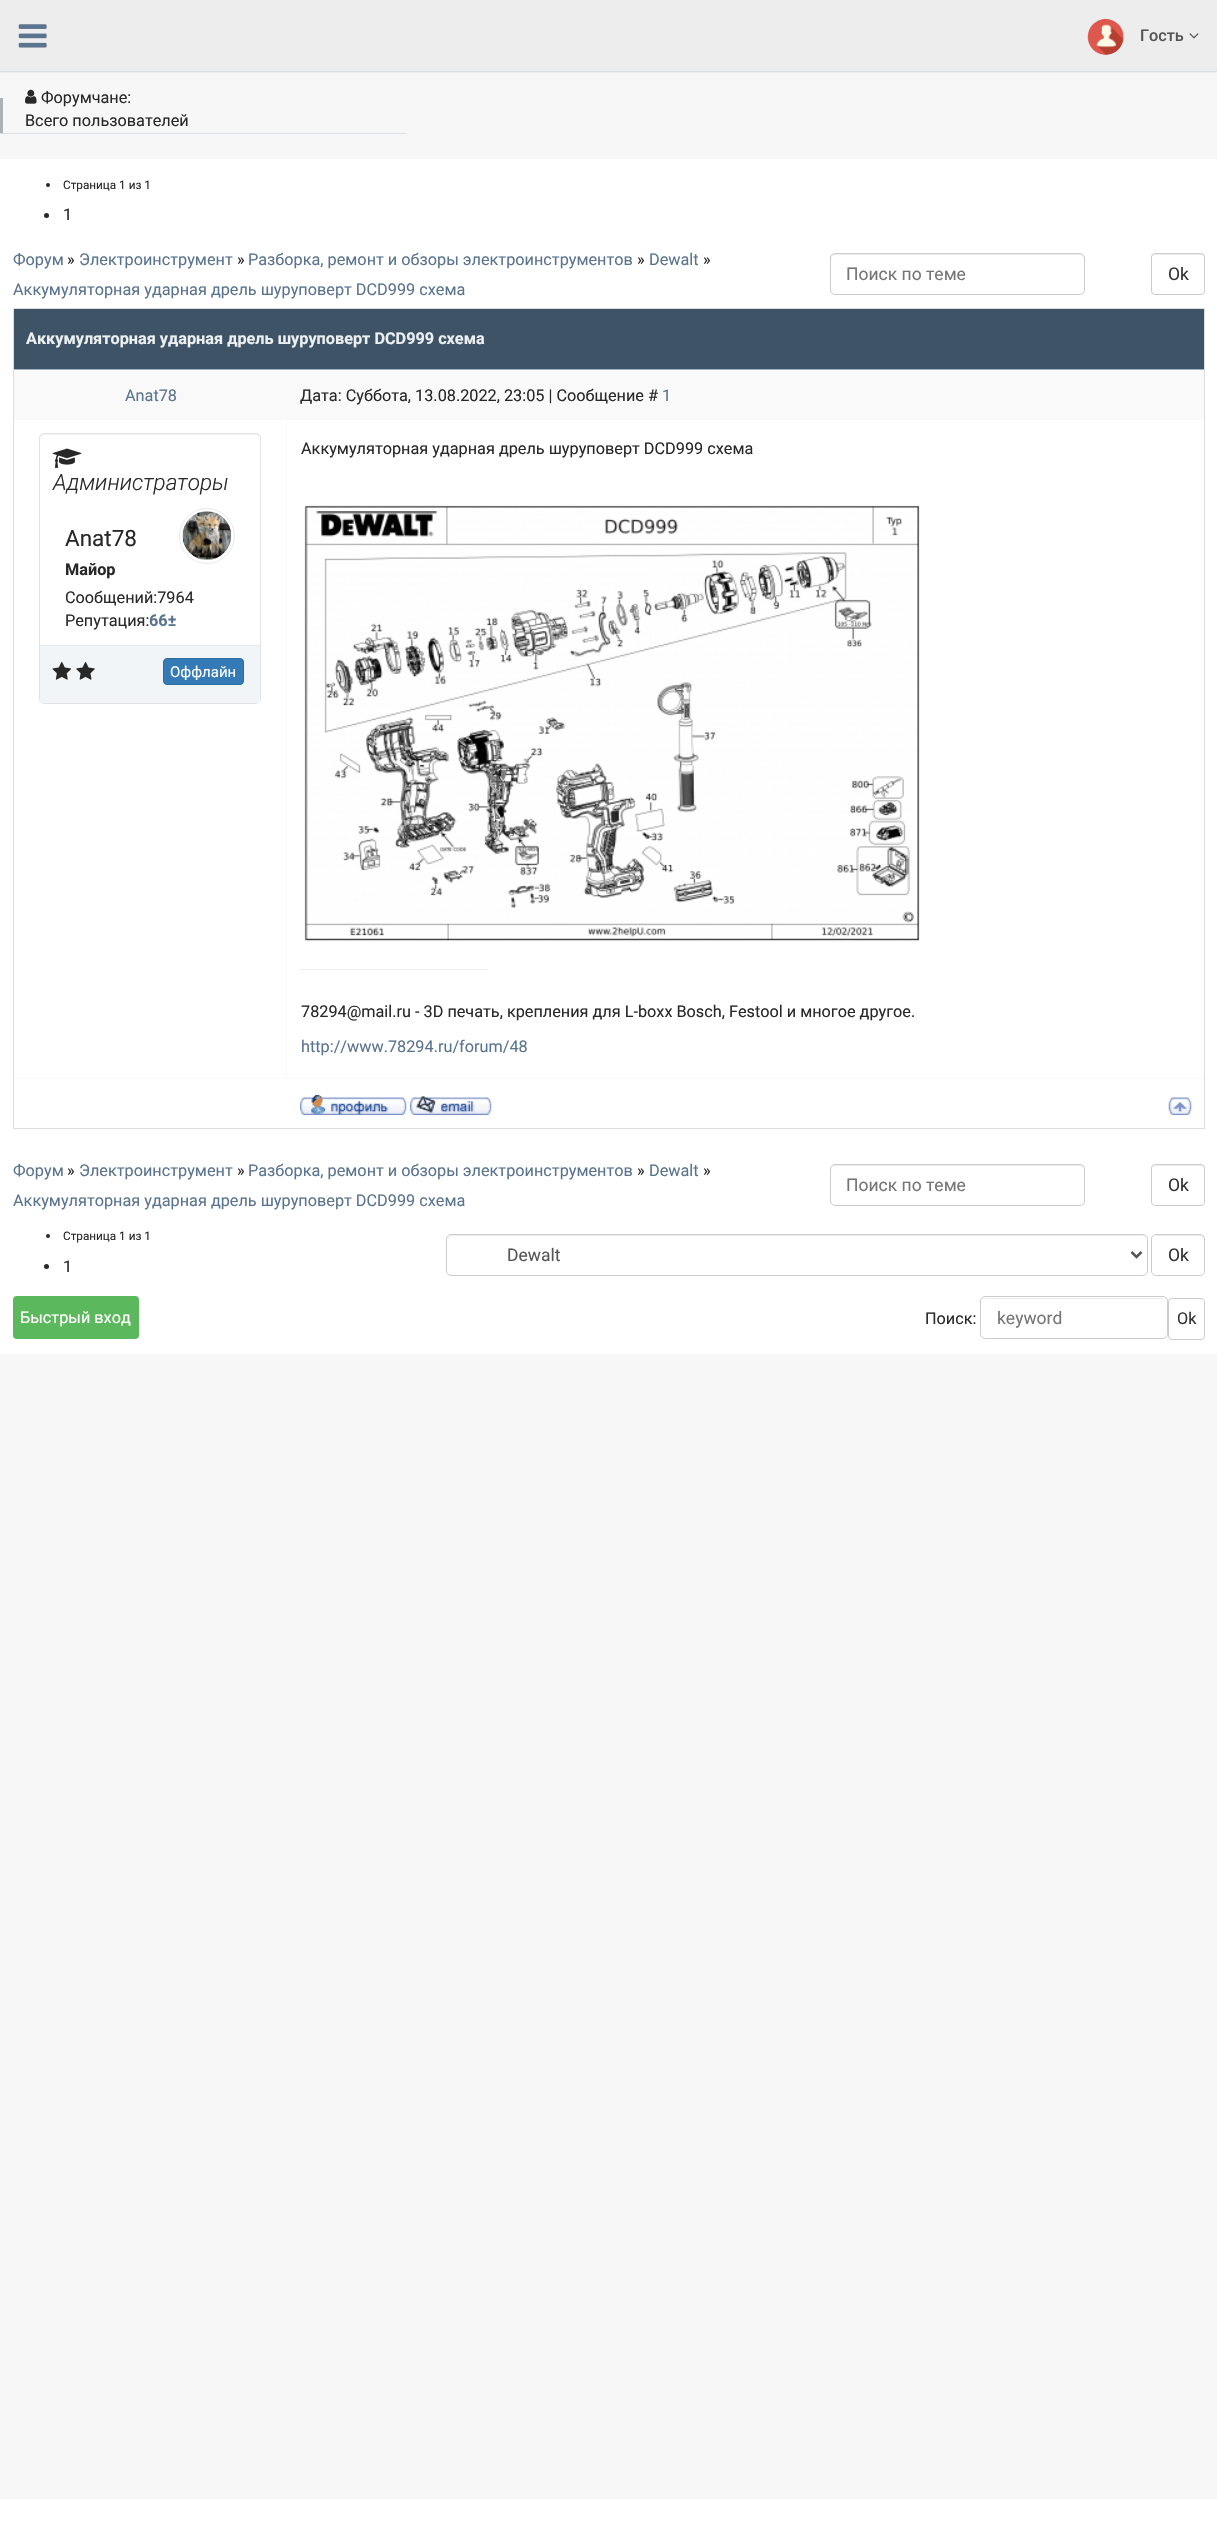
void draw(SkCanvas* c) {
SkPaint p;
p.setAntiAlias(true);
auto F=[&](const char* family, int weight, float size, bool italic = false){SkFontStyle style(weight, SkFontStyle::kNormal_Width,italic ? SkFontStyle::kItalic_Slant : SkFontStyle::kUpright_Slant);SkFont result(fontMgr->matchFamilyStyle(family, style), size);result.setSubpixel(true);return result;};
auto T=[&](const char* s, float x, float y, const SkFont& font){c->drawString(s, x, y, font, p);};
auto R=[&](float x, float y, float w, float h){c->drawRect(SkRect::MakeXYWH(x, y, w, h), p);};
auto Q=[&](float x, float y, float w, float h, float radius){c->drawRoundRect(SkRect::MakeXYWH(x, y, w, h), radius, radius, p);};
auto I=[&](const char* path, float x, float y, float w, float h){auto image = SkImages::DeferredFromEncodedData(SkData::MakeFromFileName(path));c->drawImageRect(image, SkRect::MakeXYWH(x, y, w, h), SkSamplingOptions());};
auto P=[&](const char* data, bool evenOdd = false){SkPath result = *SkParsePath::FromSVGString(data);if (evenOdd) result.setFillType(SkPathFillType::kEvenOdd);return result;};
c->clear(0xfff7f7f7);
p.setColor(0xffededed);
R(0,0,1217,73);
p.setColor(0xffd9dee4);
R(0,71,1217,1);
I("1.png",18,24,29,24);
I("2.png",1087,18,37,37);
auto f1 = F("Roboto",500,16.25);
p.setColor(0xff555555);
T("Гость",1140,41,f1);
I("3.png",1189,33,10,6);
p.setColor(0xffd9dee4);
R(0,133,406,1);
p.setColor(0xffadb2b5);
R(0,98,3,35);
I("4.png",25,89,12,15);
auto f2 = F("Roboto",400,16.25);
p.setColor(0xff282828);
T("Форумчане:",41,103,f2);
T("Всего пользователей",25,126,f2);
p.setColor(0xffffffff);
R(0,159,1217,1195);
p.setColor(0xff282828);
c->drawCircle(48,185,2,p);
auto f3 = F("Roboto",400,11.75);
T("Страница 1 из 1",63,189,f3);
c->drawCircle(46.5,215.5,2.5,p);
T("1",63,220,f2);
p.setColor(0xff5a738e);
T("Форум",13,265,f2);
p.setColor(0xff282828);
T("»",67,265,f2);
p.setColor(0xff5a738e);
T("Электроинструмент",79,265,f2);
p.setColor(0xff282828);
T("»",237,265,f2);
p.setColor(0xff5a738e);
T("Разборка, ремонт и обзоры электроинструментов",248,265,f2);
p.setColor(0xff282828);
T("»",637,265,f2);
p.setColor(0xff5a738e);
T("Dewalt",649,265,f2);
p.setColor(0xff282828);
T("»",703,265,f2);
p.setColor(0xff5a738e);
T("Аккумуляторная ударная дрель шуруповерт DCD999 схема",13,295,f2);
p.setColor(0xffececec);
c->drawPath(P("M835 255h245c2 0 4 2 4 4v-1c0-2-2-4-4-4h-245c-2 0-4 2-4 4v1c0-2 2-4 4-4z"),p);
p.setStroke(true);
p.setStrokeWidth(1);
p.setColor(0xffcccccc);
c->drawRoundRect(SkRect::MakeXYWH(830.5,253.5,254,41),4.5,4.5,p);
auto f4 = F("Roboto",400,17.5);
p.setStroke(false);
p.setColor(0xff757575);
T("Поиск по теме",846,280,f4);
p.setColor(0xffececec);
c->drawPath(P("M1155 255h46c2 0 3 1 3 3v-2c0-1-1-2-2-2h-46c-2 0-3 1-3 2z"),p);
p.setStroke(true);
p.setColor(0xffcccccc);
c->drawRoundRect(SkRect::MakeXYWH(1151.5,253.5,53,41),3.5,3.5,p);
p.setStroke(false);
p.setColor(0xff333333);
T("Ok",1168,280,f4);
p.setColor(0xffdddddd);
R(13,308,1192,1);
p.setColor(0xffa2b1c1);
R(14,369,1191,1);
p.setColor(0xfff9f9f9);
R(14,1078,1191,1);
p.setColor(0xffdddddd);
R(1204,308,1,821);
R(13,1128,1192,1);
R(13,308,1,821);
p.setColor(0xff3f5367);
R(14,309,1190,60);
auto f5 = F("Roboto",700,16.25);
p.setColor(0xffecf0f1);
T("Аккумуляторная ударная дрель шуруповерт DCD999 схема",26,344,f5);
p.setColor(0xfff9f9f9);
R(14,370,1190,50);
p.setColor(0xff5a738e);
T("Anat78",125,401,f2);
p.setColor(0xff282828);
T("Дата: Суббота, 13.08.2022, 23:05 | Сообщение #",300,401,f2);
p.setColor(0xff5a738e);
T("1",662,401,f2);
p.setColor(0xfff9f9f9);
R(286,419,1,660);
p.setColor(0xfff2f2f2);
c->drawPath(P("M44 435h212c2 0 4 2 4 4c0-3-1-5-4-5h-214c-2 1-2 3-2 5c0-2 2-4 4-4z"),p);
p.setStroke(true);
p.setColor(0xffe3e3e3);
c->drawRoundRect(SkRect::MakeXYWH(39.5,433.5,221,270),4.5,4.5,p);
I("5.png",52,448,30,20);
auto f6 = F("Roboto",300,22.5,true);
p.setStroke(false);
p.setColor(0xff282828);
T("Администраторы",53,490,f6);
auto f7 = F("Roboto",400,22.5);
T("Anat78",65,546,f7);
T("Майор",65,575,f5);
T("Сообщений:7964",65,603,f2);
T("Репутация:",65,626,f2);
p.setColor(0xff5a738e);
T("66±",149,626,f5);
p.setStroke(true);
p.setColor(0xffe6e9ed);
c->drawCircle(207,536,27.5,p);
I("6.png",182,511,50,49);
p.setStroke(false);
p.setColor(0xfff2f5f7);
R(40,646,220,57);
p.setColor(0xffe6e9ed);
R(40,645,220,1);
I("7.png",52,662,19,18);
I("8.png",76,662,19,18);
p.setColor(0xff337ab7);
c->drawRoundRect(SkRect::MakeXYWH(163.5,658.5,80,26),3.5,3.5,p);
p.setStroke(true);
p.setColor(0xff2e6da4);
c->drawRoundRect(SkRect::MakeXYWH(163.5,658.5,80,26),3.5,3.5,p);
auto f8 = F("Roboto",400,15);
p.setStroke(false);
p.setColor(0xffffffff);
T("Оффлайн",170,677,f8);
p.setColor(0xff282828);
T("Аккумуляторная ударная дрель шуруповерт DCD999 схема",301,454,f2);
I("9.png",304,505,616,437);
p.setColor(0xffeeeeee);
R(300,969,188,1);
p.setColor(0xff282828);
T("78294@mail.ru - 3D печать, крепления для L-boxx Bosch, Festool и многое другое.",301,1017,f2);
p.setColor(0xff5a738e);
T("http://www.78294.ru/forum/48",301,1052,f2);
I("10.png",300,1094,107,21);
I("11.png",410,1096,82,19);
I("12.png",1168,1097,24,18);
T("Форум",13,1176,f2);
p.setColor(0xff282828);
T("»",67,1176,f2);
p.setColor(0xff5a738e);
T("Электроинструмент",79,1176,f2);
p.setColor(0xff282828);
T("»",237,1176,f2);
p.setColor(0xff5a738e);
T("Разборка, ремонт и обзоры электроинструментов",248,1176,f2);
p.setColor(0xff282828);
T("»",637,1176,f2);
p.setColor(0xff5a738e);
T("Dewalt",649,1176,f2);
p.setColor(0xff282828);
T("»",703,1176,f2);
p.setColor(0xff5a738e);
T("Аккумуляторная ударная дрель шуруповерт DCD999 схема",13,1206,f2);
p.setColor(0xffececec);
c->drawPath(P("M835 1166h245c2 0 4 2 4 4v-1c0-2-2-4-4-4h-245c-2 0-4 2-4 4v1c0-2 2-4 4-4z"),p);
p.setStroke(true);
p.setColor(0xffcccccc);
c->drawRoundRect(SkRect::MakeXYWH(830.5,1164.5,254,41),4.5,4.5,p);
p.setStroke(false);
p.setColor(0xff757575);
T("Поиск по теме",846,1191,f4);
p.setColor(0xffececec);
c->drawPath(P("M1155 1166h46c2 0 3 1 3 3v-1c0-2-1-3-2-3h-46c-2 0-3 1-3 2z"),p);
p.setStroke(true);
p.setColor(0xffcccccc);
c->drawRoundRect(SkRect::MakeXYWH(1151.5,1164.5,53,41),3.5,3.5,p);
p.setStroke(false);
p.setColor(0xff333333);
T("Ok",1168,1191,f4);
p.setColor(0xff282828);
c->drawCircle(48,1236,2,p);
T("Страница 1 из 1",63,1240,f3);
c->drawCircle(46.5,1266.5,2.5,p);
T("1",63,1272,f2);
p.setColor(0xffececec);
c->drawPath(P("M451 1236h691c3 0 4 2 4 4c0-3-1-5-4-5h-690l-3 1l-1 1v3c0-2 1-4 3-4z"),p);
p.setStroke(true);
p.setColor(0xffcccccc);
c->drawRoundRect(SkRect::MakeXYWH(446.5,1234.5,701,41),4.5,4.5,p);
p.setStrokeWidth(2.5);
p.setColor(0xff555555);
c->drawPath(P("M1131.5 1252l5 5l5-5"),p);
p.setStroke(false);
T("Dewalt",507,1261,f4);
p.setColor(0xffececec);
c->drawPath(P("M1156 1236h44c2 0 4 2 4 4v-1c0-2-2-4-4-4h-43c-1 0-3 1-3 2z"),p);
p.setStroke(true);
p.setStrokeWidth(1);
p.setColor(0xffcccccc);
c->drawRoundRect(SkRect::MakeXYWH(1151.5,1234.5,53,41),4.5,4.5,p);
p.setStroke(false);
p.setColor(0xff333333);
T("Ok",1168,1261,f4);
p.setColor(0xff5cb85c);
Q(13,1296,126,43,4);
p.setColor(0xffffffff);
T("Быстрый вход",20,1323,f2);
p.setColor(0xff282828);
T("Поиск:",925,1324,f2);
p.setColor(0xffececec);
c->drawPath(P("M985 1299h179l2 1c-1-1-2-2-4-2h-177c-2 0-4 2-4 4c0-2 2-3 4-3z"),p);
p.setStroke(true);
p.setColor(0xffcccccc);
c->drawRoundRect(SkRect::MakeXYWH(980.5,1296.5,187,42),4.5,4.5,p);
p.setStroke(false);
p.setColor(0xff757575);
T("keyword",997,1324,f4);
p.setStroke(true);
p.setColor(0xffcccccc);
c->drawRoundRect(SkRect::MakeXYWH(1168.5,1298.5,36,41),3.5,3.5,p);
p.setStroke(false);
p.setColor(0xff333333);
T("Ok",1177,1324,f2);
p.setColor(0xffffffff);
R(0,2499,1217,33);
}
